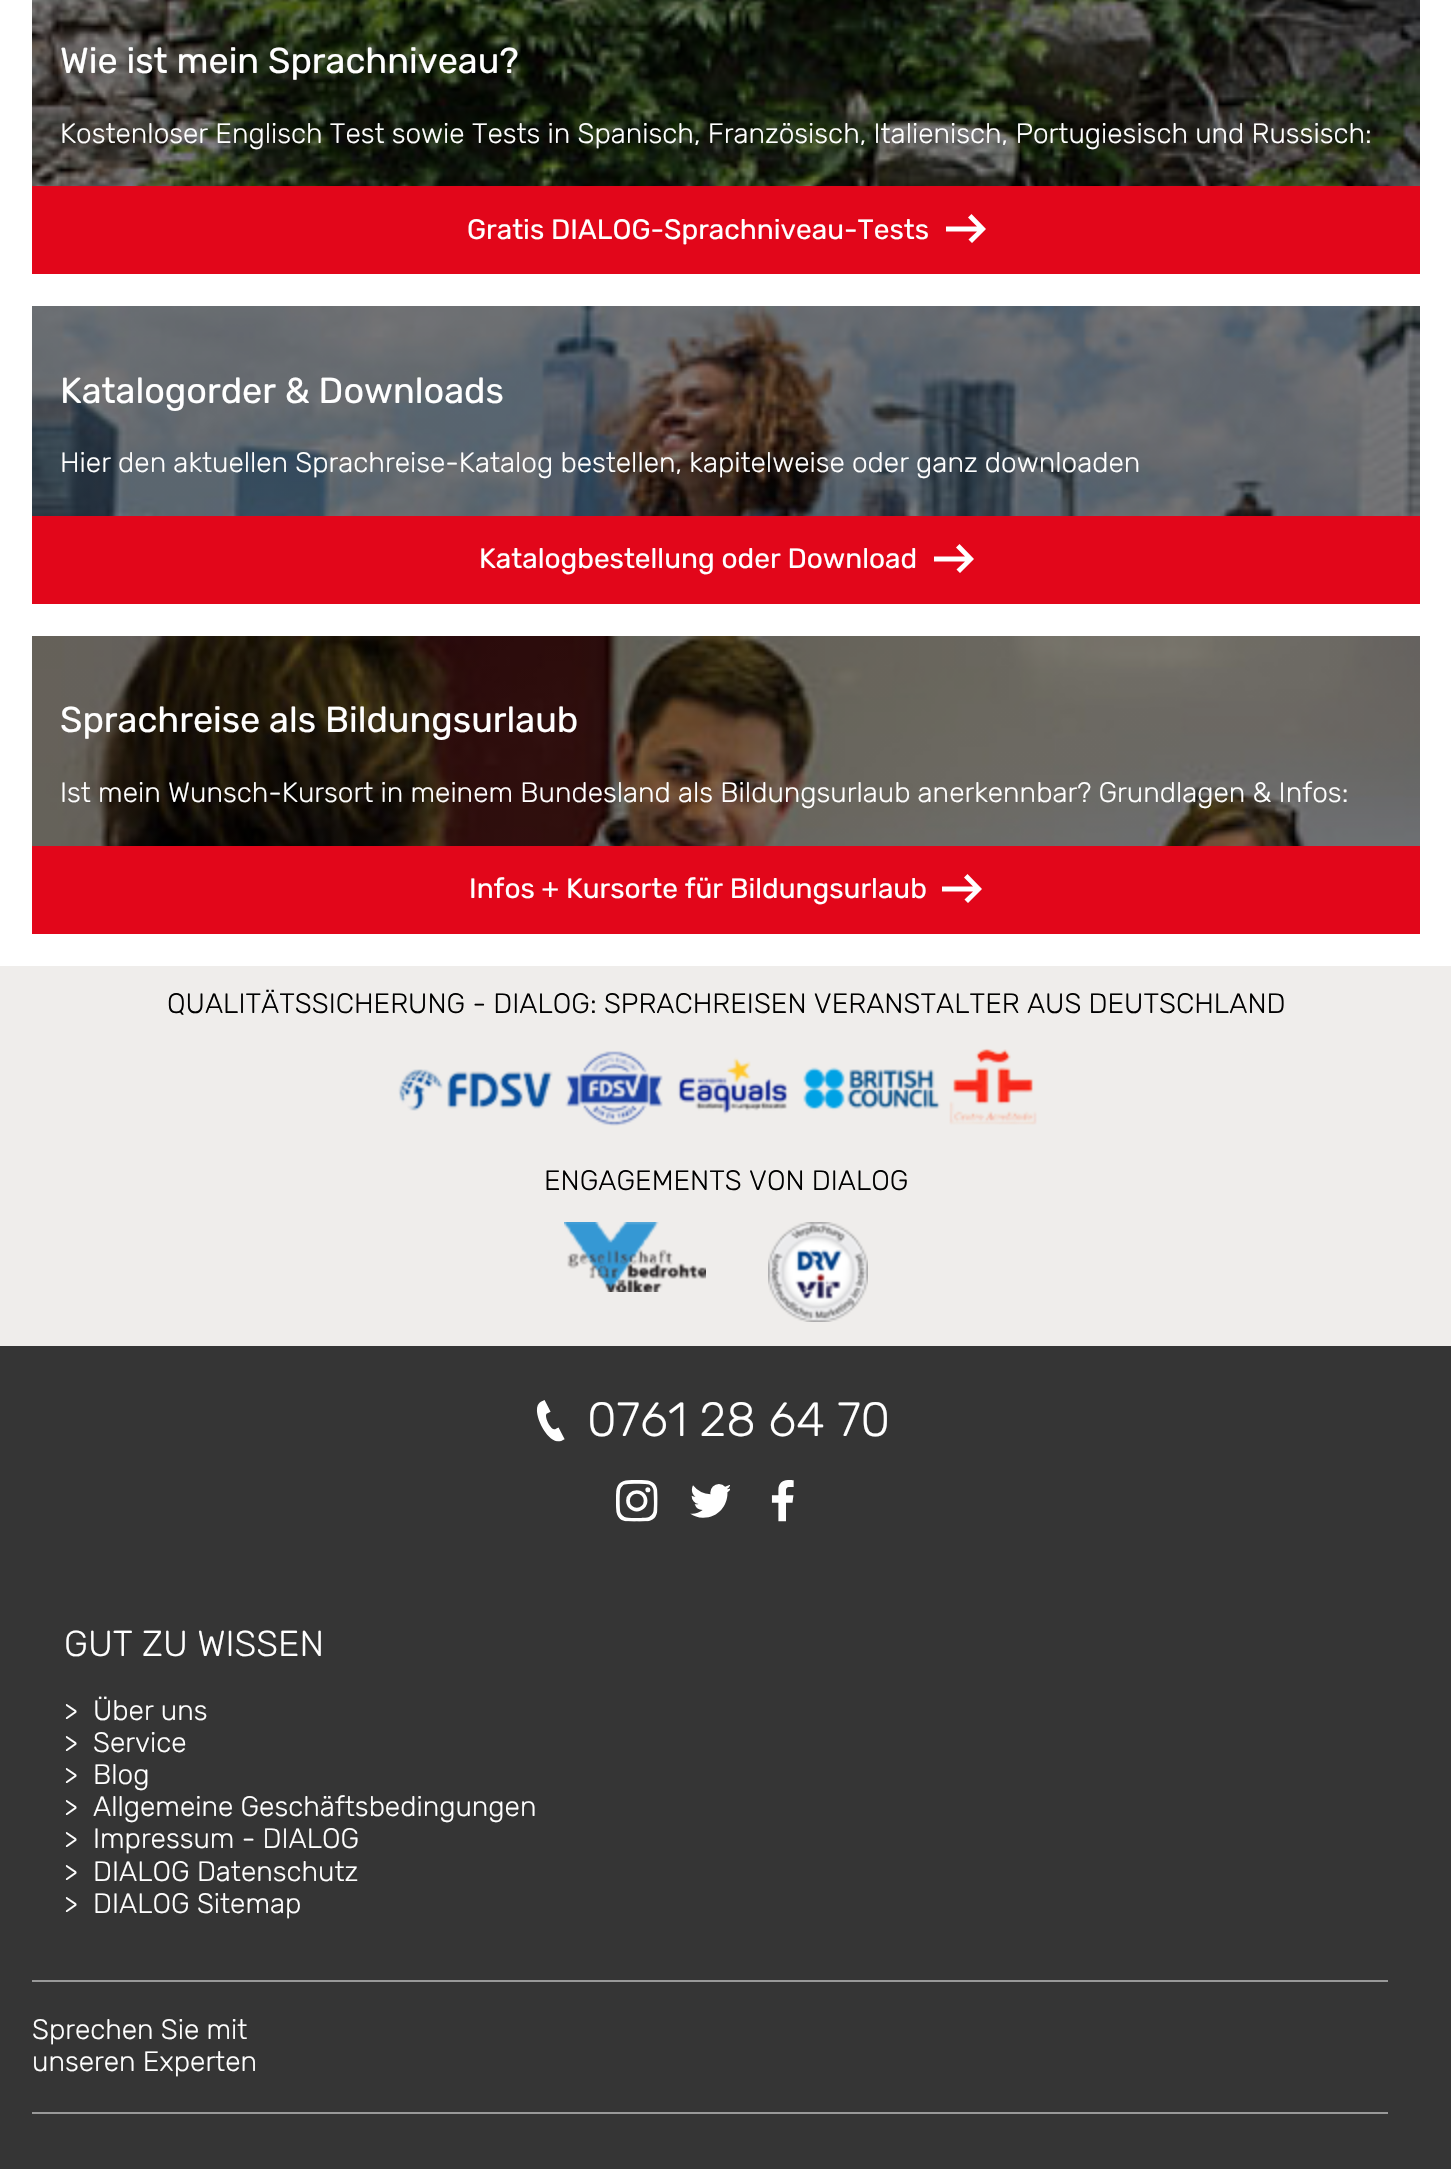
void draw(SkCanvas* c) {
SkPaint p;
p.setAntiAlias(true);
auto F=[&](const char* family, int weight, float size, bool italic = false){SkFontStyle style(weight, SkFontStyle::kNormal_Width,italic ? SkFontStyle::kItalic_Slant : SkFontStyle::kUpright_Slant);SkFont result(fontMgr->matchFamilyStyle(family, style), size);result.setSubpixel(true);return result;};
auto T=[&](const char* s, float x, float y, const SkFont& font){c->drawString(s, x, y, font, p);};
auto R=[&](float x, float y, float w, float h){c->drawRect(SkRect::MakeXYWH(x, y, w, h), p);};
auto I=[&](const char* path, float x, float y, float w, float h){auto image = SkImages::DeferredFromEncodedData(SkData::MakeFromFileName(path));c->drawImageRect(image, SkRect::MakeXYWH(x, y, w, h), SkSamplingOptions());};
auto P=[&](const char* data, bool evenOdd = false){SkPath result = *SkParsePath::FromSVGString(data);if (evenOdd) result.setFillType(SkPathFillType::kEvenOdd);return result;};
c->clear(0xffffffff);
I("1.png",32,0,1388,186);
auto f1 = F("Rubik",400,36);
p.setColor(0xffffffff);
T("Wie ist mein Sprachniveau?",60,73,f1);
auto f2 = F("Rubik",300,28);
T("Kostenloser Englisch Test sowie Tests in Spanisch, Französisch, Italienisch, Portugiesisch und Russisch:",60,143,f2);
p.setColor(0xffe2061a);
R(32,186,1388,88);
auto f3 = F("Rubik",400,28);
p.setColor(0xffffffff);
T("Gratis DIALOG-Sprachniveau-Tests",467,239,f3);
c->drawPath(P("M968.5 239.5l8.5-8h-31v-5h31l-9-9l3.5-3.5l14.5 15l-14 14z"),p);
I("2.png",32,306,1388,210);
T("Katalogorder & Downloads",60,403,f1);
T("Hier den aktuellen Sprachreise-Katalog bestellen, kapitelweise oder ganz downloaden",60,472,f2);
p.setColor(0xffe2061a);
R(32,516,1388,88);
p.setColor(0xffffffff);
T("Katalogbestellung oder Download",479,568,f3);
c->drawPath(P("M956.5 569.5l8.5-8h-31v-5h31l-9-9l3.5-3.5l14.5 15l-14 14z"),p);
I("3.png",32,636,1388,210);
T("Sprachreise als Bildungsurlaub",60,732,f1);
T("Ist mein Wunsch-Kursort in meinem Bundesland als Bildungsurlaub anerkennbar? Grundlagen & Infos:",60,802,f2);
p.setColor(0xffe2061a);
R(32,846,1388,88);
p.setColor(0xffffffff);
T("Infos + Kursorte für Bildungsurlaub",469,898,f3);
c->drawPath(P("M964.5 899.5l8.5-8h-31v-5h31l-9-9l3.5-3.5l14.5 15l-14 14z"),p);
p.setColor(0xffefedeb);
R(0,966,1451,380);
p.setColor(0xff000000);
T("QUALITÄTSSICHERUNG - DIALOG: SPRACHREISEN VERANSTALTER AUS DEUTSCHLAND",167,1013,f2);
I("4.png",398,1048,639,78);
T("ENGAGEMENTS VON DIALOG",544,1190,f2);
I("5.png",564,1222,142,70);
I("6.png",768,1222,100,100);
p.setColor(0xff353535);
R(0,1346,1451,823);
I("7.png",536,1400,29,42);
auto f4 = F("Rubik",300,48);
p.setColor(0xffffffff);
T("0761 28 64 70",587,1436,f4);
I("8.png",616,1480,42,42);
I("9.png",690,1484,40,34);
I("10.png",771,1480,23,42);
p.setColor(0xff999999);
R(32,1980,1356,2);
auto f5 = F("Rubik",300,36);
p.setColor(0xffffffff);
T("GUT ZU WISSEN",64,1656,f5);
T(">",64,1720,f2);
T("Über uns",93,1720,f2);
T(">",64,1752,f2);
T("Service",93,1752,f2);
T(">",64,1784,f2);
T("Blog",93,1784,f2);
T(">",64,1816,f2);
T("Allgemeine Geschäftsbedingungen",93,1816,f2);
T(">",64,1848,f2);
T("Impressum - DIALOG",93,1848,f2);
T(">",64,1881,f2);
T("DIALOG Datenschutz",93,1881,f2);
T(">",64,1913,f2);
T("DIALOG Sitemap",93,1913,f2);
p.setColor(0xff999999);
R(32,2112,1356,2);
p.setColor(0xffffffff);
T("Sprechen Sie mit",32,2039,f2);
T("unseren Experten",32,2071,f2);
}
